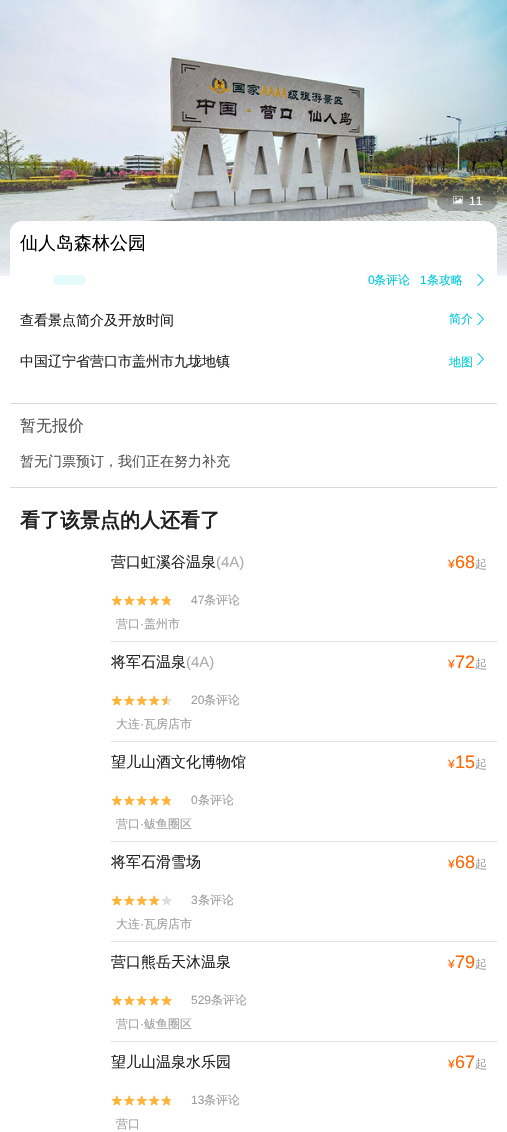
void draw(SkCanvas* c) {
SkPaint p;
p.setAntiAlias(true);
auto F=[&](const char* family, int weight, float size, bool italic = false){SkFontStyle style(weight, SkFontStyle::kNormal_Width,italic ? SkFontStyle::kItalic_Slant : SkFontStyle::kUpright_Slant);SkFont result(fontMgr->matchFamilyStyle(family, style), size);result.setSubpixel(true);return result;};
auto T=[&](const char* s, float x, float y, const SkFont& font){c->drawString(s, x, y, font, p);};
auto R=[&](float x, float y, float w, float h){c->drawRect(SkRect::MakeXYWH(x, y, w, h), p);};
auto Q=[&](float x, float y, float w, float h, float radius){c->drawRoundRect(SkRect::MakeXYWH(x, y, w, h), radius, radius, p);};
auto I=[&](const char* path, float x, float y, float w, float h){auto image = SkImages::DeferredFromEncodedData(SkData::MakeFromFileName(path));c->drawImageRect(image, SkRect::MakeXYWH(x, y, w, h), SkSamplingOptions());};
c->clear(0xffffffff);
I("1.png",0,0,507,275);
p.setColor(0x80000000);
Q(437,191,60,20,10);
I("2.png",453,195,10,10);
auto f1 = F("Liberation Sans",400,12);
p.setColor(0xffffffff);
T("11",469,205,f1);
{
const SkColor colors[] = {0x00f0f4f9,0xfff0f4f9};
const float stops[] = {0,1};
const SkPoint ends[] = {{254,161}, {254,276}};
p.setShader(SkGradientShader::MakeLinear(ends, colors, stops, 2, SkTileMode::kClamp));
p.setAlpha(255);
}
R(0,163,507,113);
p.setShader(nullptr);
p.setColor(0xffffffff);
Q(10,221,487,172,12);
auto f2 = F("WenQuanYi Zen Hei",500,18);
p.setColor(0xff000000);
T("仙人岛森林公园",20,249,f2);
p.setColor(0xffe6fafc);
Q(53,275,33,10,5);
p.setColor(0xff00cad8);
T("0",368,284,f1);
auto f3 = F("WenQuanYi Zen Hei",500,12);
T("条评论",374,284,f3);
T("1",420,284,f1);
T("条攻略",427,284,f3);
I("3.png",477,273,7,14);
auto f4 = F("WenQuanYi Zen Hei",500,14);
p.setColor(0xff212121);
T("查看景点简介及开放时间",20,325,f4);
p.setColor(0xff00cad8);
T("简介",449,323,f3);
I("3.png",477,312,7,14);
p.setColor(0xff212121);
T("中国辽宁省营口市盖州市九垅地镇",20,366,f4);
p.setColor(0xff00cad8);
T("地图",449,366,f3);
I("3.png",477,352,7,14);
p.setColor(0xffdadada);
R(10,403,487,1);
auto f5 = F("WenQuanYi Zen Hei",500,16);
p.setColor(0xff555555);
T("暂无报价",20,431,f5);
T("暂无门票预订，我们正在努力补充",20,466,f4);
p.setColor(0xffdadada);
R(10,487,487,1);
auto f6 = F("WenQuanYi Zen Hei",700,20);
p.setColor(0xff212121);
T("看了该景点的人还看了",20,527,f6);
auto f7 = F("WenQuanYi Zen Hei",500,15);
T("营口虹溪谷温泉",111,567,f7);
auto f8 = F("Liberation Sans",400,15);
p.setColor(0xffadadad);
T("(4A)",216,567,f8);
p.setColor(0xffff6600);
T("¥",448,568,f1);
auto f9 = F("Liberation Sans",400,18);
T("68",455,568,f9);
p.setColor(0xff9e9e9e);
T("起",475,568,f3);
I("4.png",111,595,61,11);
I("5.png",111,595,59,11);
T("47",191,604,f1);
T("条评论",204,604,f3);
T("营口",116,628,f3);
T("·",140,628,f1);
T("盖州市",144,628,f3);
p.setColor(0xffe0e0e0);
R(111,641,386,1);
p.setColor(0xff212121);
T("将军石温泉",111,667,f7);
p.setColor(0xffadadad);
T("(4A)",186,667,f8);
p.setColor(0xffff6600);
T("¥",448,668,f1);
T("72",455,668,f9);
p.setColor(0xff9e9e9e);
T("起",475,668,f3);
I("4.png",111,695,61,11);
I("6.png",111,695,56,11);
T("20",191,704,f1);
T("条评论",204,704,f3);
T("大连",116,728,f3);
T("·",140,728,f1);
T("瓦房店市",144,728,f3);
p.setColor(0xffe0e0e0);
R(111,741,386,1);
p.setColor(0xff212121);
T("望儿山酒文化博物馆",111,767,f7);
p.setColor(0xffff6600);
T("¥",448,768,f1);
T("15",455,768,f9);
p.setColor(0xff9e9e9e);
T("起",475,768,f3);
I("4.png",111,795,61,11);
I("5.png",111,795,59,11);
T("0",191,804,f1);
T("条评论",198,804,f3);
T("营口",116,828,f3);
T("·",140,828,f1);
T("鲅鱼圈区",144,828,f3);
p.setColor(0xffe0e0e0);
R(111,841,386,1);
p.setColor(0xff212121);
T("将军石滑雪场",111,867,f7);
p.setColor(0xffff6600);
T("¥",448,868,f1);
T("68",455,868,f9);
p.setColor(0xff9e9e9e);
T("起",475,868,f3);
I("4.png",111,895,61,11);
I("7.png",111,895,49,11);
T("3",191,904,f1);
T("条评论",198,904,f3);
T("大连",116,928,f3);
T("·",140,928,f1);
T("瓦房店市",144,928,f3);
p.setColor(0xffe0e0e0);
R(111,941,386,1);
p.setColor(0xff212121);
T("营口熊岳天沐温泉",111,967,f7);
p.setColor(0xffff6600);
T("¥",448,968,f1);
T("79",455,968,f9);
p.setColor(0xff9e9e9e);
T("起",475,968,f3);
I("4.png",111,995,61,11);
I("8.png",111,995,60,11);
T("529",191,1004,f1);
T("条评论",211,1004,f3);
T("营口",116,1028,f3);
T("·",140,1028,f1);
T("鲅鱼圈区",144,1028,f3);
p.setColor(0xffe0e0e0);
R(111,1041,386,1);
p.setColor(0xff212121);
T("望儿山温泉水乐园",111,1067,f7);
p.setColor(0xffff6600);
T("¥",448,1068,f1);
T("67",455,1068,f9);
p.setColor(0xff9e9e9e);
T("起",475,1068,f3);
I("4.png",111,1095,61,11);
I("5.png",111,1095,59,11);
T("13",191,1104,f1);
T("条评论",204,1104,f3);
T("营口",116,1128,f3);
}
